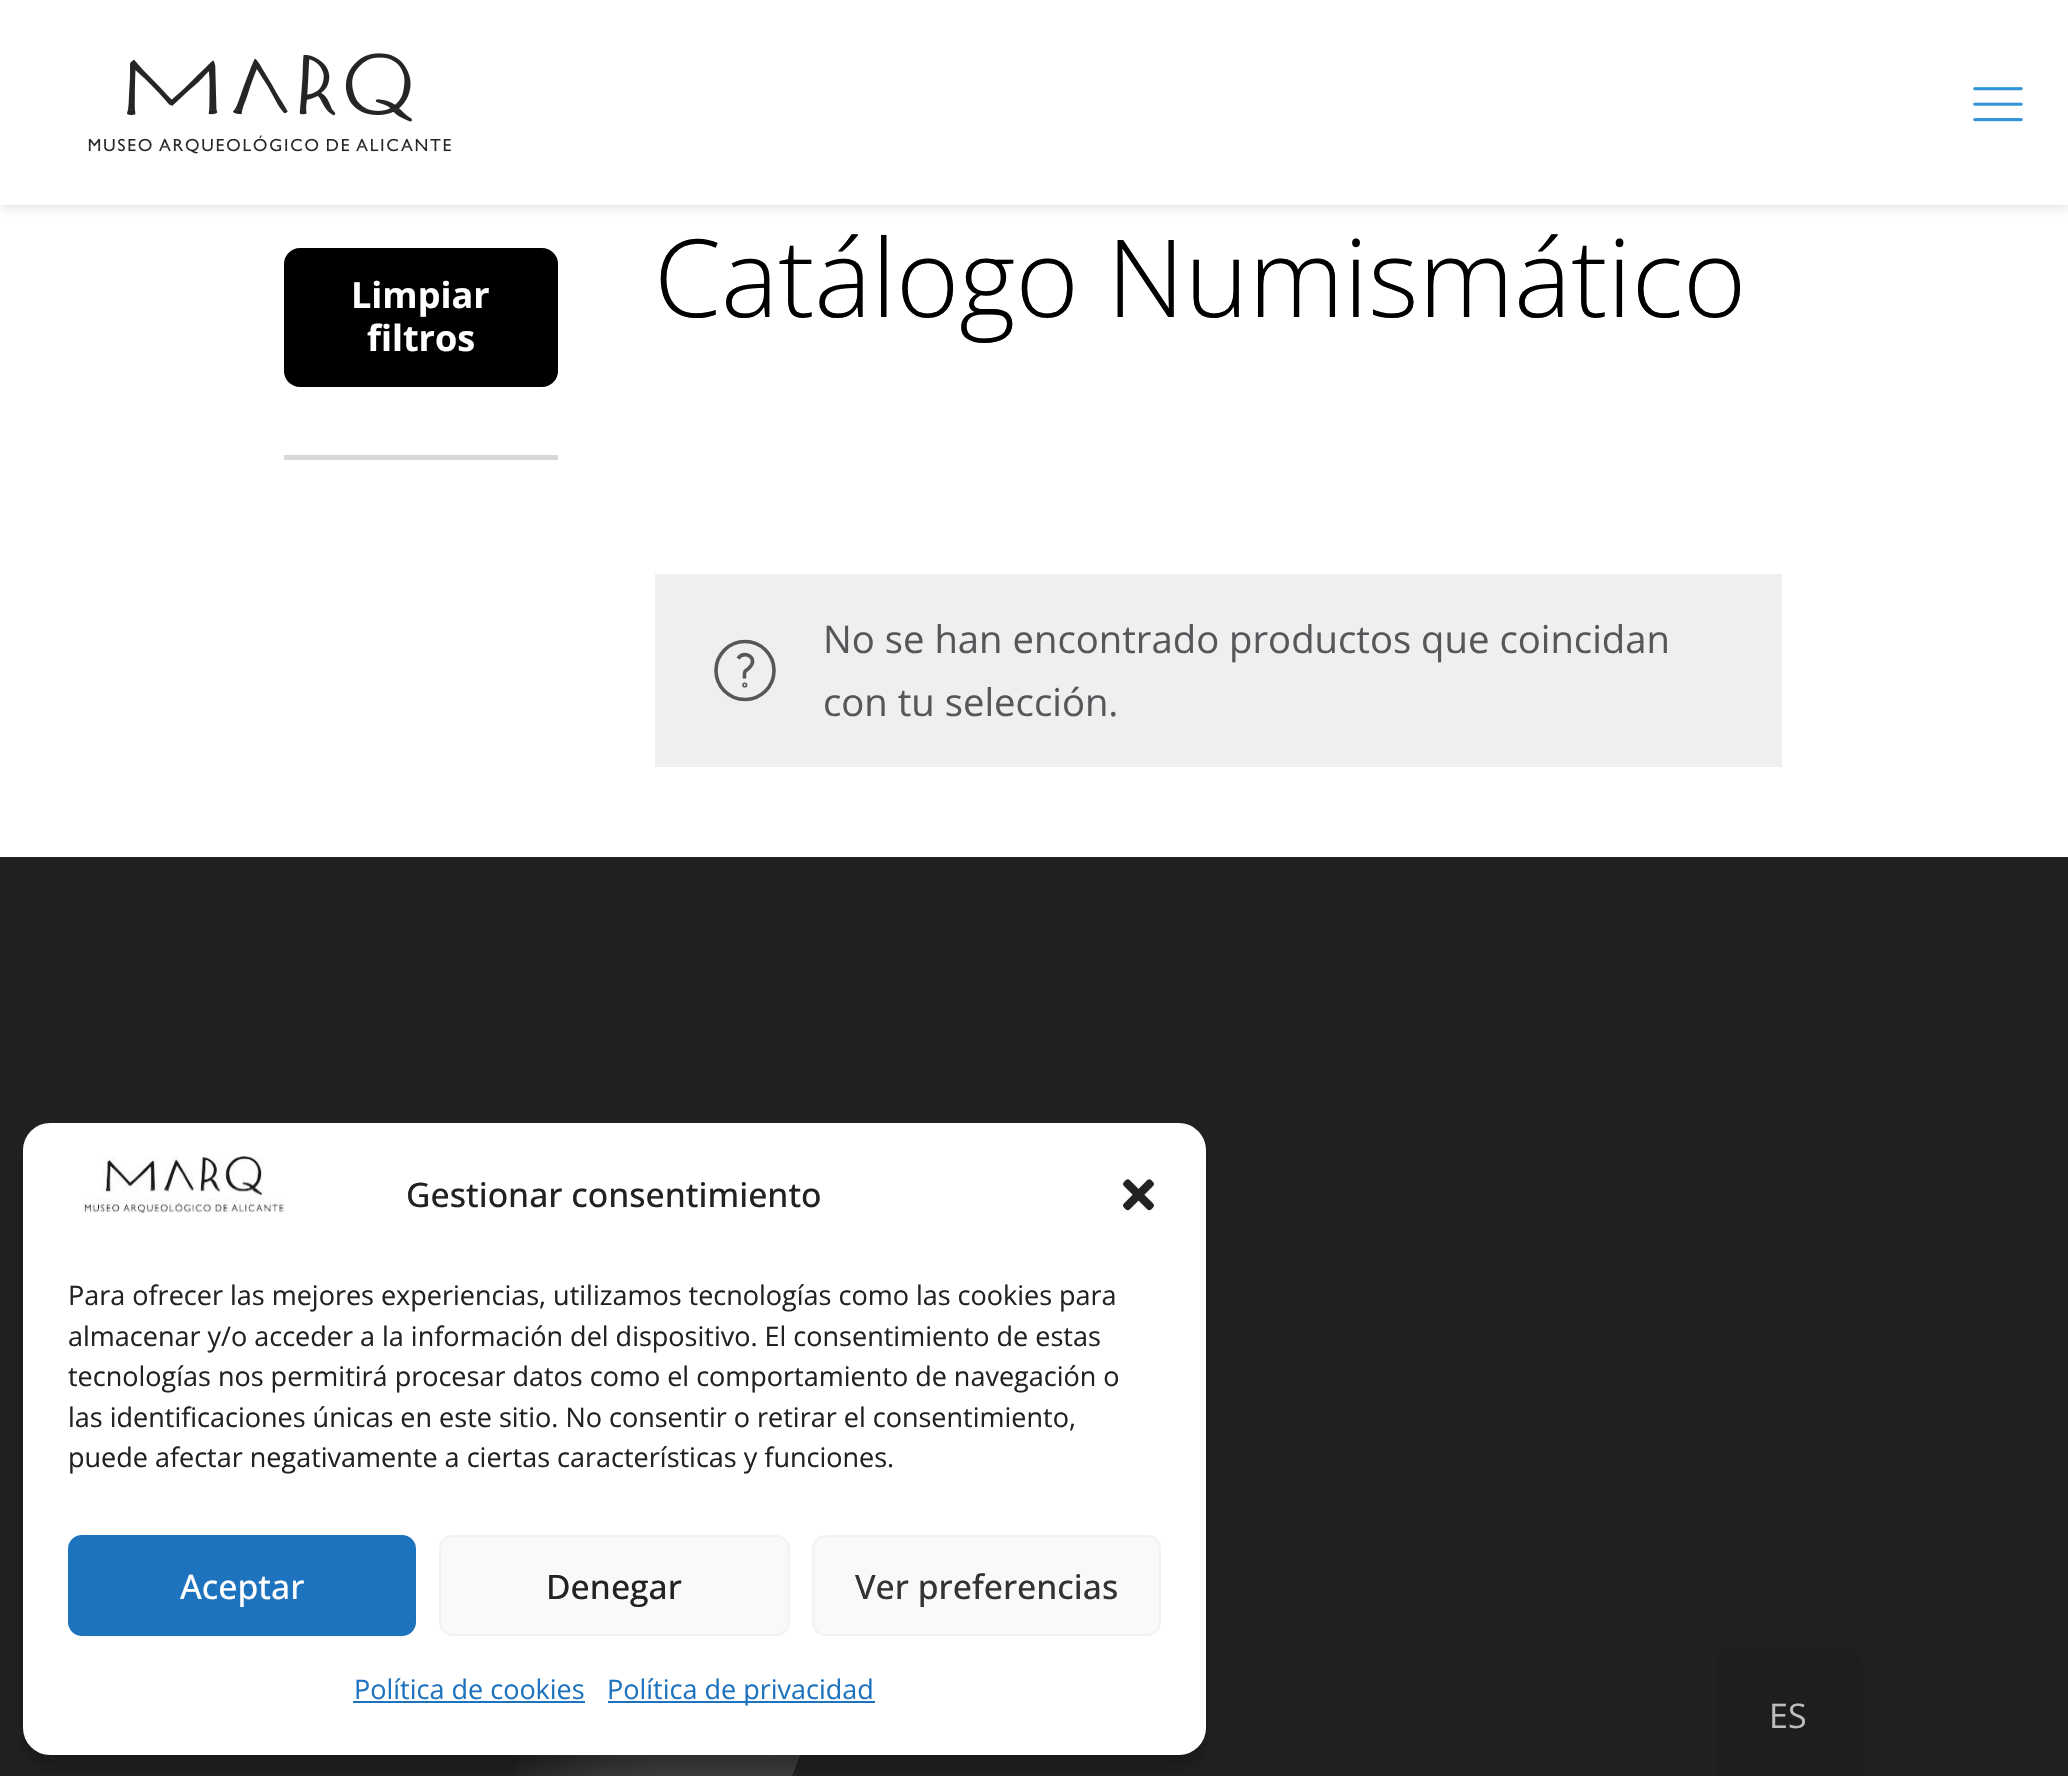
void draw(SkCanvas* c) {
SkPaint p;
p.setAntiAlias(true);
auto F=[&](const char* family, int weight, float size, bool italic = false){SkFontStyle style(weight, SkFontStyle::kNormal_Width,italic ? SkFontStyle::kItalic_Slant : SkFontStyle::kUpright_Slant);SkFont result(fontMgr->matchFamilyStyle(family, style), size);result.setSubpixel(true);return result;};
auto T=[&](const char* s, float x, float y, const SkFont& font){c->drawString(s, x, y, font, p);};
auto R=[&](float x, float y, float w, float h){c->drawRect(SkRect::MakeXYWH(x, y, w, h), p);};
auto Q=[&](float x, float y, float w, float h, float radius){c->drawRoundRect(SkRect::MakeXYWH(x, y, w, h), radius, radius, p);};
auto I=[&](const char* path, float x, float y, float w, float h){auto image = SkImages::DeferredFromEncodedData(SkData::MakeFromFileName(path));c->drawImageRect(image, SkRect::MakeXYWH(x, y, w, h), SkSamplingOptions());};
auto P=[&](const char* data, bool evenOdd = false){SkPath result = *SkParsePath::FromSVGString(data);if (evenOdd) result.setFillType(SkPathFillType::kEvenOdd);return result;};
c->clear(0xffffffff);
p.setColor(0x1a080808);
p.setMaskFilter(SkMaskFilter::MakeBlur(kNormal_SkBlurStyle, 5.5));
c->drawRect(SkRect::MakeXYWH(0,5,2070,204),p);
p.setMaskFilter(nullptr);
p.setColor(0xffffffff);
R(0,0,2068,205);
I("1.png",88,53,363,101);
I("2.png",1973,87,50,35);
p.setColor(0xff000000);
Q(284,248,274,139,16);
auto f1 = F("Open Sans",700,36);
p.setColor(0xffffffff);
T("Limpiar",351,308,f1);
T("filtros",367,351,f1);
p.setColor(0xffd8d8d8);
R(284,455,274,5);
auto f2 = F("Open Sans",300,108);
p.setColor(0xff000000);
T("Catálogo Numismático",654,317,f2);
p.setColor(0xffefefef);
R(655,574,1127,193);
p.setStroke(true);
p.setStrokeWidth(3.6);
p.setColor(0xff57575b);
c->drawCircle(745,670.5,29,p);
c->drawPath(P("M738 658.5c2-3 5.5-4.5 9.5-3.5c2 .5 3.5 2 4.5 3.5c1.5 4-.5 7.5-3.5 10c-1 1-3 2-3.5 3c-1 2-.5 5-.5 7"),p);
c->drawCircle(744.8,685,.8,p);
auto f3 = F("Open Sans",400,38.25);
p.setStroke(false);
T("No se han encontrado productos que coincidan",823,653,f3);
T("con tu selección.",823,716,f3);
p.setColor(0xff212121);
R(0,857,2068,919);
I("3.png",517,1755,283,21);
p.setColor(0x3b000000);
p.setMaskFilter(SkMaskFilter::MakeBlur(kNormal_SkBlurStyle, 7));
c->drawRoundRect(SkRect::MakeXYWH(23,1136,1183,633),27,27,p);
p.setMaskFilter(nullptr);
p.setColor(0xffffffff);
Q(23,1123,1183,632,27);
I("4.png",82,1156,202,57);
auto f4 = F("Open Sans",500,33.75);
p.setColor(0xff222222);
T("Gestionar consentimiento",406,1207,f4);
I("5.png",1123,1179,31,32);
auto f5 = F("Open Sans",400,27);
T("Para ofrecer las mejores experiencias, utilizamos tecnologías como las cookies para",68,1305,f5);
T("almacenar y/o acceder a la información del dispositivo. El consentimiento de estas",68,1346,f5);
T("tecnologías nos permitirá procesar datos como el comportamiento de navegación o",68,1386,f5);
T("las identificaciones únicas en este sitio. No consentir o retirar el consentimiento,",68,1427,f5);
T("puede afectar negativamente a ciertas características y funciones.",68,1467,f5);
p.setColor(0xff1e73be);
c->drawRoundRect(SkRect::MakeXYWH(69,1536,346,99),13,13,p);
p.setStroke(true);
p.setStrokeWidth(2);
c->drawRoundRect(SkRect::MakeXYWH(69,1536,346,99),13,13,p);
p.setStroke(false);
p.setColor(0xffffffff);
T("Aceptar",180,1599,f4);
p.setColor(0xfff9f9f9);
c->drawRoundRect(SkRect::MakeXYWH(440,1536,349,99),13,13,p);
p.setStroke(true);
p.setColor(0xfff2f2f2);
c->drawRoundRect(SkRect::MakeXYWH(440,1536,349,99),13,13,p);
p.setStroke(false);
p.setColor(0xff222222);
T("Denegar",546,1599,f4);
p.setColor(0xfff9f9f9);
c->drawRoundRect(SkRect::MakeXYWH(813,1536,347,99),13,13,p);
p.setStroke(true);
p.setColor(0xfff2f2f2);
c->drawRoundRect(SkRect::MakeXYWH(813,1536,347,99),13,13,p);
p.setStroke(false);
p.setColor(0xff333333);
T("Ver preferencias",855,1599,f4);
p.setColor(0xff1e73be);
T("Política de cookies",354,1699,f5);
R(353,1701,232,2);
R(608,1701,267,2);
T("Política de privacidad",607,1699,f5);
p.setColor(0xff1e1e1e);
c->drawPath(P("M1733 1647h112c10 0 18 8 18 18v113h-148v-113c0-10 8-18 18-18z"),p);
auto f6 = F("Open Sans",400,34);
p.setColor(0xffbdbdbd);
T("ES",1769,1728,f6);
}
